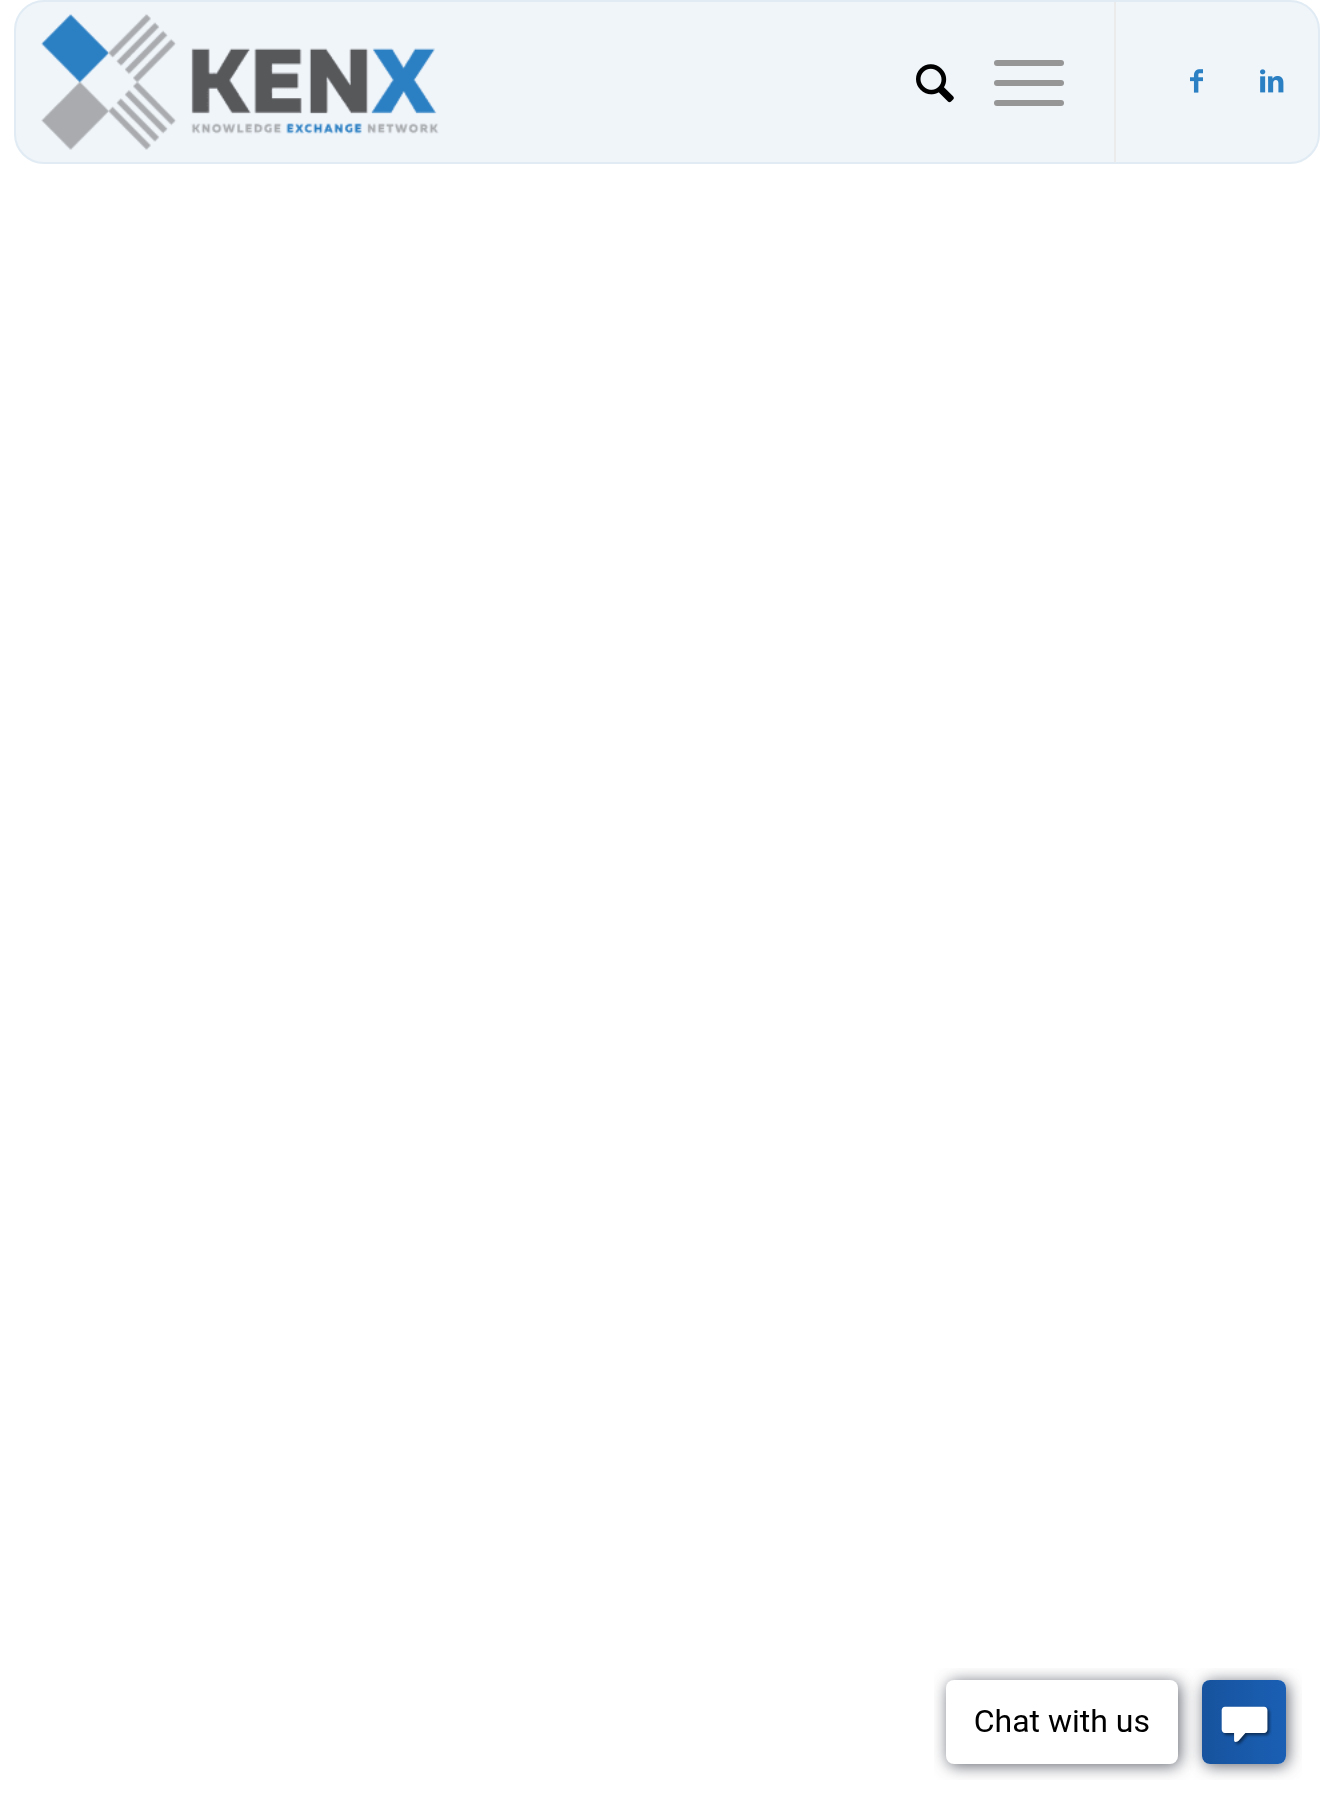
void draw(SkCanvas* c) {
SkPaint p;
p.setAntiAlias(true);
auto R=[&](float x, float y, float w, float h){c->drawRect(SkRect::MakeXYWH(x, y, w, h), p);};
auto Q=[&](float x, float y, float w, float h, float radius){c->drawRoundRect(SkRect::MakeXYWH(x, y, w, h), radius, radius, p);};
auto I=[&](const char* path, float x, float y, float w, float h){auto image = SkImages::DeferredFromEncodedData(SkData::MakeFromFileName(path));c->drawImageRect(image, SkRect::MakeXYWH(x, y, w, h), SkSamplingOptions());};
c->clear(0xffffffff);
p.setColor(0xfff0f5fa);
c->drawRoundRect(SkRect::MakeXYWH(15,1,1304,162),29,29,p);
p.setStroke(true);
p.setStrokeWidth(2);
p.setColor(0xffe0ebf4);
c->drawRoundRect(SkRect::MakeXYWH(15,1,1304,162),29,29,p);
I("1.png",41,14,398,136);
p.setStroke(false);
p.setColor(0xffebebeb);
R(1114,2,2,160);
I("2.png",916,64,38,39);
p.setColor(0xff969696);
Q(994,80,70,6,3);
Q(994,60,70,6,3);
Q(994,100,70,6,3);
I("3.png",1190,69,13,24);
I("4.png",1260,69,24,24);
I("5.png",934,1668,368,112);
}
